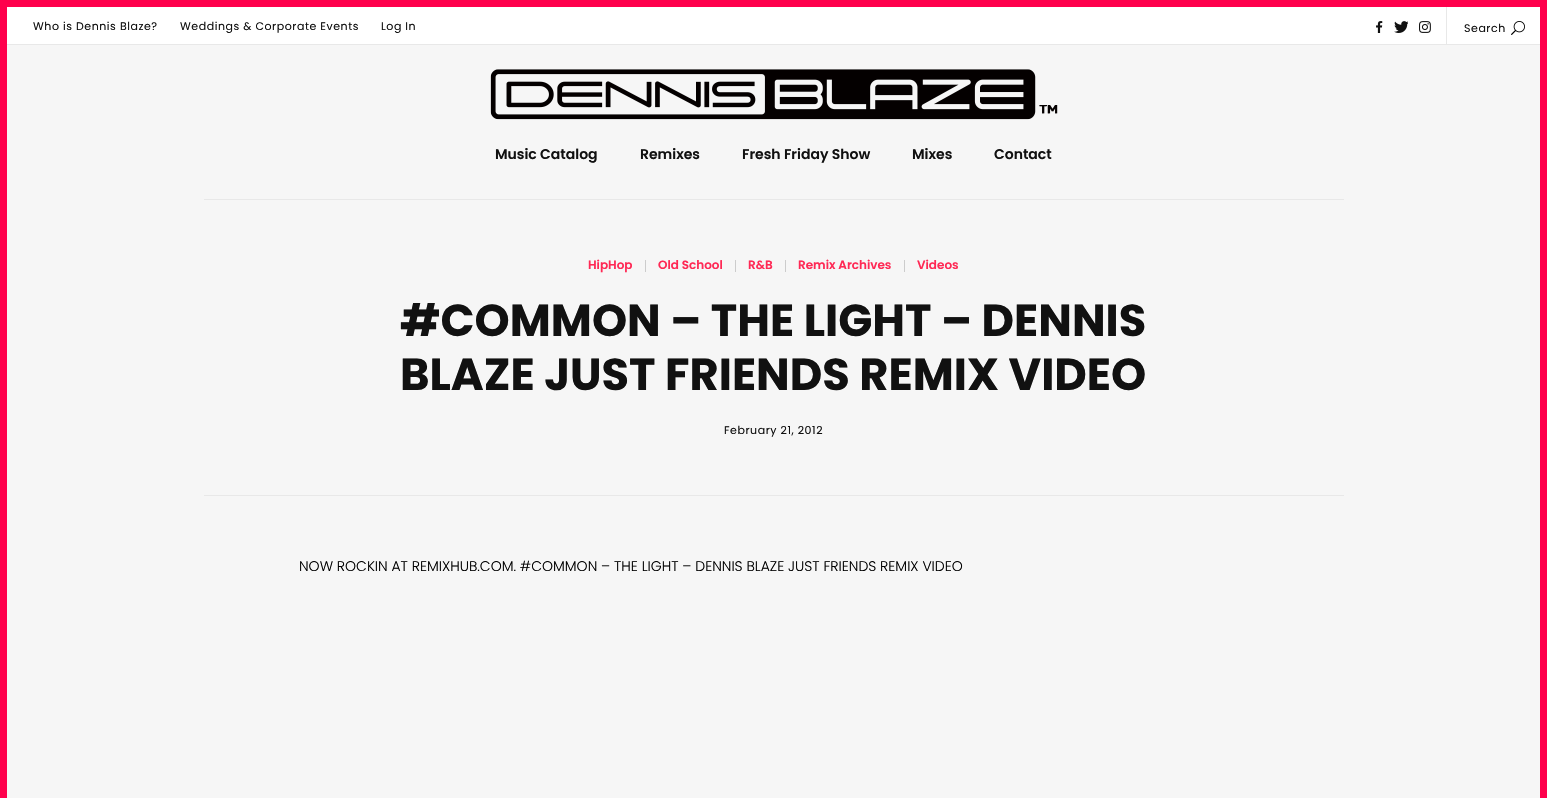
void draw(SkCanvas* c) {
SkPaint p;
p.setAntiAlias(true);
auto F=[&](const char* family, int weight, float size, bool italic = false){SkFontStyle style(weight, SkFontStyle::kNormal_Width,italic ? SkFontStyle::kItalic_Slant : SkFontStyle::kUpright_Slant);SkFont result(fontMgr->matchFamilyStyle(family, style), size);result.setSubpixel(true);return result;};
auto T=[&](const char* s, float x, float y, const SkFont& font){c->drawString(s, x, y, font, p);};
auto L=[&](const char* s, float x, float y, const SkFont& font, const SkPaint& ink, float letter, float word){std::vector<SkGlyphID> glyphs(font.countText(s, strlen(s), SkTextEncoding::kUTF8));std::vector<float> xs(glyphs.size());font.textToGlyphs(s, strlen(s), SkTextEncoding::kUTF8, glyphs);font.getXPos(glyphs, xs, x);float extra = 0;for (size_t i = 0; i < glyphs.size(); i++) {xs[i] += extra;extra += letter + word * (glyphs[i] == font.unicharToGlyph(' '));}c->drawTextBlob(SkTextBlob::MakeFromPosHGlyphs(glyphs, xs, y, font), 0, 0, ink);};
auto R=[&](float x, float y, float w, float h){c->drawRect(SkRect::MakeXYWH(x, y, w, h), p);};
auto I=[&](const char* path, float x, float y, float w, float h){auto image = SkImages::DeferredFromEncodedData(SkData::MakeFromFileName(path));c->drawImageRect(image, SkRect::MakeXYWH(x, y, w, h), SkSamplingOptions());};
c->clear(0xfff6f6f6);
p.setStroke(true);
p.setStrokeWidth(7);
p.setColor(0xffff004c);
c->drawRect(SkRect::MakeXYWH(3.5,3.5,1540,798),p);
p.setStroke(false);
p.setColor(0xffffffff);
R(7,7,1533,37);
p.setColor(0xffe8e8e8);
R(7,44,1533,1);
auto f1 = F("Poppins",400,11);
p.setColor(0xff111111);
L("Who is Dennis Blaze?",33,30,f1,p,.55,0);
L("Weddings & Corporate Events",180,30,f1,p,.55,0);
L("Log In",381,30,f1,p,.55,0);
I("1.png",1376,21,7,12);
I("2.png",1394,21,14,12);
I("3.png",1419,21,12,12);
p.setColor(0xffe8e8e8);
R(1446,7,1,37);
p.setColor(0xff111111);
L("Search",1464,32,f1,p,.55,0);
I("4.png",1511,21,14,14);
I("5.png",490,69,568,51);
auto f2 = F("Poppins",600,14);
T("Music Catalog",495,159,f2);
T("Remixes",640,159,f2);
T("Fresh Friday Show",742,159,f2);
T("Mixes",912,159,f2);
T("Contact",994,159,f2);
p.setColor(0xffe8e8e8);
R(204,199,1140,1);
auto f3 = F("Poppins",600,12);
p.setColor(0xffff2955);
T("HipHop",588,269,f3);
p.setColor(0xffcccccc);
R(645,260,1,12);
p.setColor(0xffff2955);
T("Old School",658,269,f3);
p.setColor(0xffcccccc);
R(735,260,1,12);
p.setColor(0xffff2955);
T("R&B",748,269,f3);
p.setColor(0xffcccccc);
R(785,260,1,12);
p.setColor(0xffff2955);
T("Remix Archives",798,269,f3);
p.setColor(0xffcccccc);
R(904,260,1,12);
p.setColor(0xffff2955);
T("Videos",917,269,f3);
auto f4 = F("Poppins",700,44.75);
p.setColor(0xff111111);
T("#COMMON – THE LIGHT – DENNIS",400,336,f4);
T("BLAZE JUST FRIENDS REMIX VIDEO",400,390,f4);
L("February 21, 2012",724,434,f1,p,.55,0);
p.setColor(0xffe8e8e8);
R(204,495,1140,1);
auto f5 = F("Poppins",300,14);
p.setColor(0xff000000);
T("NOW ROCKIN AT REMIXHUB.COM. #COMMON – THE LIGHT – DENNIS BLAZE JUST FRIENDS REMIX VIDEO",299,571,f5);
}
